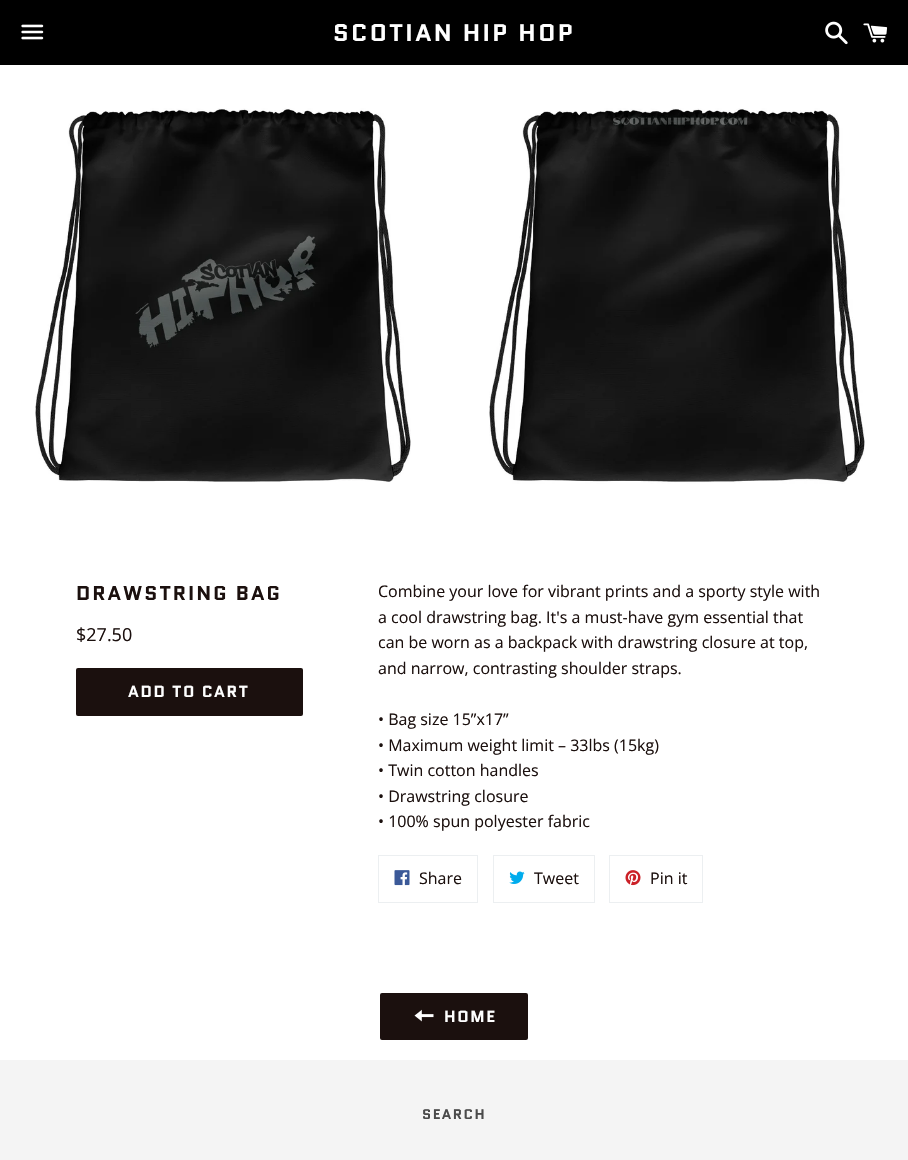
void draw(SkCanvas* c) {
SkPaint p;
p.setAntiAlias(true);
auto F=[&](const char* family, int weight, float size, bool italic = false){SkFontStyle style(weight, SkFontStyle::kNormal_Width,italic ? SkFontStyle::kItalic_Slant : SkFontStyle::kUpright_Slant);SkFont result(fontMgr->matchFamilyStyle(family, style), size);result.setSubpixel(true);return result;};
auto T=[&](const char* s, float x, float y, const SkFont& font){c->drawString(s, x, y, font, p);};
auto L=[&](const char* s, float x, float y, const SkFont& font, const SkPaint& ink, float letter, float word){std::vector<SkGlyphID> glyphs(font.countText(s, strlen(s), SkTextEncoding::kUTF8));std::vector<float> xs(glyphs.size());font.textToGlyphs(s, strlen(s), SkTextEncoding::kUTF8, glyphs);font.getXPos(glyphs, xs, x);float extra = 0;for (size_t i = 0; i < glyphs.size(); i++) {xs[i] += extra;extra += letter + word * (glyphs[i] == font.unicharToGlyph(' '));}c->drawTextBlob(SkTextBlob::MakeFromPosHGlyphs(glyphs, xs, y, font), 0, 0, ink);};
auto R=[&](float x, float y, float w, float h){c->drawRect(SkRect::MakeXYWH(x, y, w, h), p);};
auto Q=[&](float x, float y, float w, float h, float radius){c->drawRoundRect(SkRect::MakeXYWH(x, y, w, h), radius, radius, p);};
auto I=[&](const char* path, float x, float y, float w, float h){auto image = SkImages::DeferredFromEncodedData(SkData::MakeFromFileName(path));c->drawImageRect(image, SkRect::MakeXYWH(x, y, w, h), SkSamplingOptions());};
c->clear(0xffffffff);
p.setColor(0xff000000);
R(0,0,908,65);
I("1.png",21,24,23,16);
auto f1 = F("Quantico",700,24);
p.setColor(0xffffffff);
L("SCOTIAN HIP HOP",333,41,f1,p,2.4,0);
I("2.png",825,21,23,24);
I("3.png",863,23,25,20);
I("4.png",35,108,376,374);
I("5.png",489,108,376,376);
auto f2 = F("Quantico",700,20);
p.setColor(0xff1b100e);
L("DRAWSTRING BAG",76,600,f2,p,2,0);
auto f3 = F("Open Sans",400,18);
T("$27.50",76,641,f3);
Q(76,668,227,48,2);
auto f4 = F("Quantico",700,16);
p.setColor(0xffffffff);
L("ADD TO CART",128,697,f4,p,1.6,0);
auto f5 = F("Open Sans",400,16);
p.setColor(0xff1b100e);
T("Combine your love for vibrant prints and a sporty style with",378,597,f5);
T("a cool drawstring bag. It's a must-have gym essential that",378,623,f5);
T("can be worn as a backpack with drawstring closure at top,",378,648,f5);
T("and narrow, contrasting shoulder straps.",378,674,f5);
T("• Bag size 15”x17”",378,725,f5);
T("• Maximum weight limit – 33lbs (15kg)",378,751,f5);
T("• Twin cotton handles",378,776,f5);
T("• Drawstring closure",378,802,f5);
T("• 100% spun polyester fabric",378,827,f5);
p.setStroke(true);
p.setStrokeWidth(1);
p.setColor(0xffeceff1);
c->drawRect(SkRect::MakeXYWH(378.5,855.5,99,47),p);
I("6.png",394,870,16,16);
p.setStroke(false);
p.setColor(0xff1b100e);
T("Share",419,884,f5);
p.setStroke(true);
p.setColor(0xffeceff1);
c->drawRect(SkRect::MakeXYWH(493.5,855.5,101,47),p);
I("7.png",509,871,16,13);
p.setStroke(false);
p.setColor(0xff1b100e);
T("Tweet",534,884,f5);
p.setStroke(true);
p.setColor(0xffeceff1);
c->drawRect(SkRect::MakeXYWH(609.5,855.5,93,47),p);
I("8.png",625,870,16,16);
p.setStroke(false);
p.setColor(0xff1b100e);
T("Pin it",650,884,f5);
Q(380,993,148,47,2);
I("9.png",414,1009,20,13);
p.setColor(0xffffffff);
L("HOME",444,1022,f4,p,1.6,0);
p.setColor(0xfff4f4f4);
R(0,1060,908,100);
auto f6 = F("Quantico",700,14);
p.setColor(0xff4a4a4a);
L("SEARCH",422,1119,f6,p,1.5,0);
}
